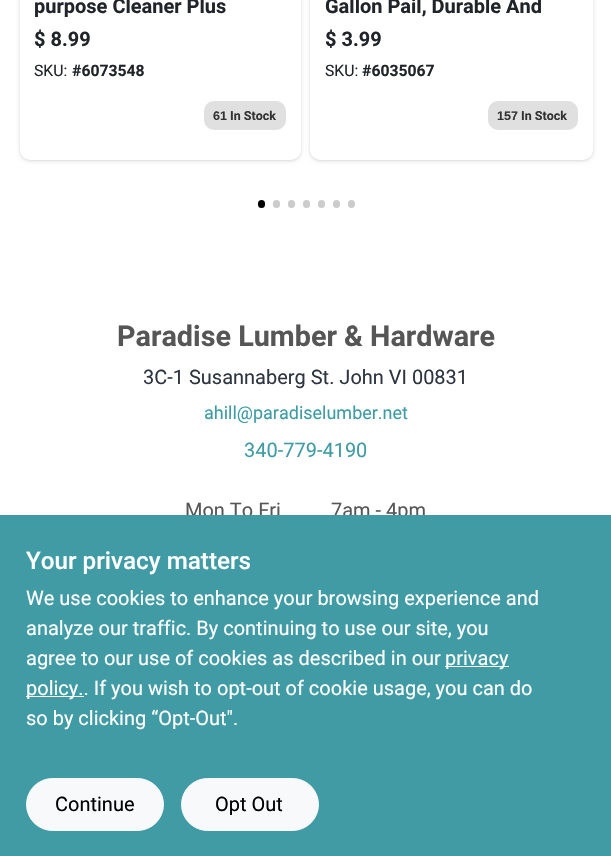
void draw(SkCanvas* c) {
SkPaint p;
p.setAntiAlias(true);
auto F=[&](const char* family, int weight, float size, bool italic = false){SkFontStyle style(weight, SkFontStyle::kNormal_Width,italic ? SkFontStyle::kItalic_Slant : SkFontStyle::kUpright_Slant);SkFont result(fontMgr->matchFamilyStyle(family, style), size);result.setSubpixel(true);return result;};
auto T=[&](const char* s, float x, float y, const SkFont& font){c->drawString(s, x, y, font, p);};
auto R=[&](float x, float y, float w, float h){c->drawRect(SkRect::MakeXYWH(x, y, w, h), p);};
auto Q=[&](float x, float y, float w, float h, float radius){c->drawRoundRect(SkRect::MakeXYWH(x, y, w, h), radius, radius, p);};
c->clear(0xffffffff);
p.setColor(0x0f000000);
p.setMaskFilter(SkMaskFilter::MakeBlur(kNormal_SkBlurStyle, 1));
c->drawRoundRect(SkRect::MakeXYWH(20,-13,281,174),10,10,p);
p.setMaskFilter(nullptr);
p.setColor(0x1a000000);
p.setMaskFilter(SkMaskFilter::MakeBlur(kNormal_SkBlurStyle, 2));
c->drawRoundRect(SkRect::MakeXYWH(20,-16,281,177),10,10,p);
p.setMaskFilter(nullptr);
p.setColor(0xffffffff);
Q(20,-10,281,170,10);
auto f1 = F("Roboto",700,20);
p.setColor(0xff212529);
T("purpose Cleaner Plus",34,13,f1);
T("$ 8.99",34,46,f1);
auto f2 = F("Roboto",400,15.75);
T("SKU:",34,76,f2);
auto f3 = F("Roboto",700,15.75);
T("#6073548",72,76,f3);
p.setColor(0xffe0e0e0);
Q(204,101,82,29,10);
auto f4 = F("Liberation Sans",700,12.5);
p.setColor(0xff333333);
T("61",213,120,f4);
auto f5 = F("Roboto",700,12.5);
T("In Stock",230,120,f5);
p.setColor(0x0f000000);
p.setMaskFilter(SkMaskFilter::MakeBlur(kNormal_SkBlurStyle, 1));
c->drawRoundRect(SkRect::MakeXYWH(310,-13,283,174),10,10,p);
p.setMaskFilter(nullptr);
p.setColor(0x1a000000);
p.setMaskFilter(SkMaskFilter::MakeBlur(kNormal_SkBlurStyle, 2));
c->drawRoundRect(SkRect::MakeXYWH(310,-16,283,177),10,10,p);
p.setMaskFilter(nullptr);
p.setColor(0xffffffff);
Q(310,-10,283,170,10);
p.setColor(0xff212529);
T("Gallon Pail, Durable And",325,13,f1);
T("$ 3.99",325,46,f1);
T("SKU:",325,76,f2);
T("#6035067",362,76,f3);
p.setColor(0xffe0e0e0);
Q(488,101,90,29,10);
p.setColor(0xff333333);
T("157",497,120,f4);
T("In Stock",521,120,f5);
p.setColor(0xff000000);
Q(258,200,7,8,3.5);
p.setColor(0xffcccccc);
Q(273,200,7,8,3.5);
Q(288,200,7,8,3.5);
Q(303,200,7,8,3.5);
Q(318,200,7,8,3.5);
Q(333,200,7,8,3.5);
Q(348,200,7,8,3.5);
auto f6 = F("Roboto",700,28.75);
p.setColor(0xff565656);
T("Paradise Lumber & Hardware",117,346,f6);
auto f7 = F("Roboto",400,20);
p.setColor(0xff2f3540);
T("3C-1 Susannaberg St. John VI 00831",143,384,f7);
auto f8 = F("Roboto",400,18);
p.setColor(0xff409ba5);
T("ahill@paradiselumber.net",204,419,f8);
T("340-779-4190",244,457,f7);
p.setColor(0xff565656);
T("Mon To Fri",185,517,f7);
T("7am - 4pm",331,517,f7);
p.setColor(0xff409ba5);
R(0,515,611,341);
auto f9 = F("Roboto",500,24.25);
p.setColor(0xffffffff);
T("Your privacy matters",26,569,f9);
T("We use cookies to enhance your browsing experience and",26,605,f7);
T("analyze our traffic. By continuing to use our site, you",26,635,f7);
T("agree to our use of cookies as described in our",26,665,f7);
R(445,666,64,1);
T("privacy",445,665,f7);
R(26,696,58,1);
T("policy.. If you wish to opt-out of cookie usage, you can do",26,695,f7);
T("so by clicking “Opt-Out\".",26,725,f7);
p.setColor(0xfff8f9fa);
c->drawRoundRect(SkRect::MakeXYWH(26.5,778.5,137,52),26,26,p);
p.setStroke(true);
p.setStrokeWidth(1);
c->drawRoundRect(SkRect::MakeXYWH(26.5,778.5,137,52),26,26,p);
p.setStroke(false);
p.setColor(0xff000000);
T("Continue",55,811,f7);
p.setColor(0xfff8f9fa);
c->drawRoundRect(SkRect::MakeXYWH(181.5,778.5,137,52),26,26,p);
p.setStroke(true);
c->drawRoundRect(SkRect::MakeXYWH(181.5,778.5,137,52),26,26,p);
p.setStroke(false);
p.setColor(0xff000000);
T("Opt Out",215,811,f7);
}
